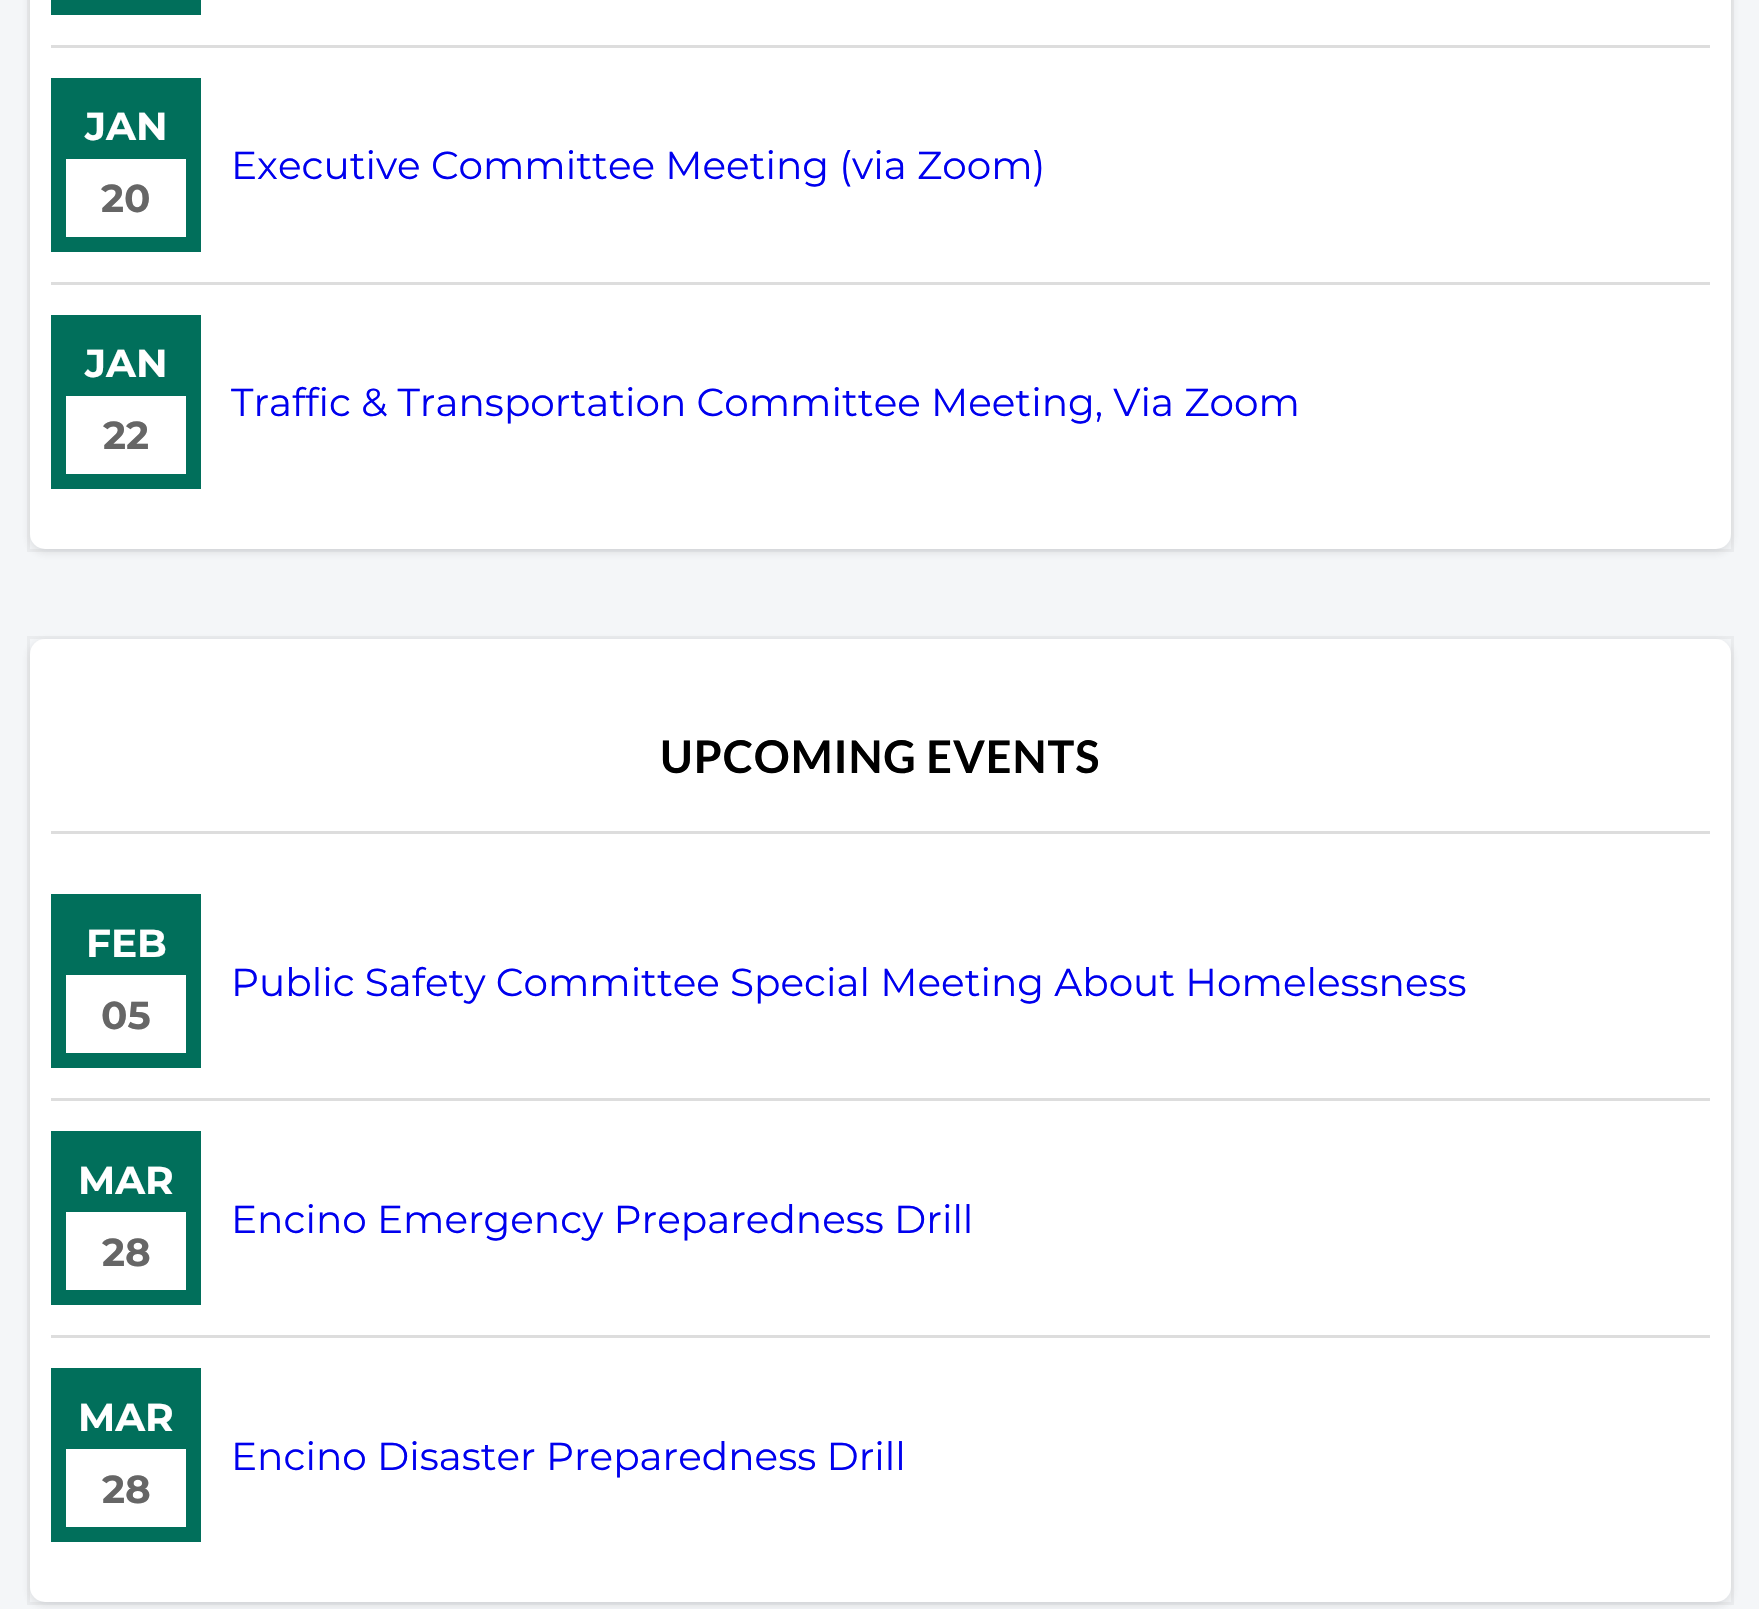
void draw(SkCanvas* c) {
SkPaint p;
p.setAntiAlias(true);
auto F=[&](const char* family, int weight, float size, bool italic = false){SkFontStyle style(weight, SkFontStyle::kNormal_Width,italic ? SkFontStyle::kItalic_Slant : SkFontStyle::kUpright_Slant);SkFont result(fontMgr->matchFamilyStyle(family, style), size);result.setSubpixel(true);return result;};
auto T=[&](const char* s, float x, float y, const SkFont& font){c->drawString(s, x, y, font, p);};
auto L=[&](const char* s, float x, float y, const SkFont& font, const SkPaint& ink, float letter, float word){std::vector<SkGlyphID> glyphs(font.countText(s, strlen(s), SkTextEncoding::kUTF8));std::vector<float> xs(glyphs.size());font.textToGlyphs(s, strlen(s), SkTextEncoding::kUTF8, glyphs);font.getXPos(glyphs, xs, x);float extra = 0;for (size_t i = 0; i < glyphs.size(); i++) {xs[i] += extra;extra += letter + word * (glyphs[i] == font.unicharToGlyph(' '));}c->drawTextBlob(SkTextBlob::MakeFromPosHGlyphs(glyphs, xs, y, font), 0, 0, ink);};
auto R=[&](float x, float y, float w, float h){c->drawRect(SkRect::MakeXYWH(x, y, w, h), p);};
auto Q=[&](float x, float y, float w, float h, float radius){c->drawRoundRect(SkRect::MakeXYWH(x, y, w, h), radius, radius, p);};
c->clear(0xfff4f6f8);
p.setColor(0x263f3f44);
p.setMaskFilter(SkMaskFilter::MakeBlur(kNormal_SkBlurStyle, 4.5));
c->drawRoundRect(SkRect::MakeXYWH(30,-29,1701,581),15,15,p);
p.setMaskFilter(nullptr);
p.setStroke(true);
p.setStrokeWidth(3);
p.setColor(0x0d3f3f44);
c->drawRect(SkRect::MakeXYWH(28.5,-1.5,1704,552),p);
p.setStroke(false);
p.setColor(0xffffffff);
Q(30,-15,1701,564,15);
p.setColor(0xff016f5b);
R(51,0,150,15);
p.setColor(0xffdddddd);
R(51,45,1659,3);
p.setColor(0xff016f5b);
R(51,78,150,174);
auto f1 = F("Montserrat",700,39);
p.setColor(0xffffffff);
T("JAN",85,140,f1);
R(66,159,120,78);
p.setColor(0xff666666);
T("20",101,212,f1);
auto f2 = F("Montserrat",400,39);
p.setColor(0xff0000ee);
T("Executive Committee Meeting (via Zoom)",231,179,f2);
p.setColor(0xffdddddd);
R(51,282,1659,3);
p.setColor(0xff016f5b);
R(51,315,150,174);
p.setColor(0xffffffff);
T("JAN",85,377,f1);
R(66,396,120,78);
p.setColor(0xff666666);
T("22",103,449,f1);
p.setColor(0xff0000ee);
T("Traffic & Transportation Committee Meeting, Via Zoom",231,416,f2);
p.setColor(0x263f3f44);
p.setMaskFilter(SkMaskFilter::MakeBlur(kNormal_SkBlurStyle, 4.5));
c->drawRoundRect(SkRect::MakeXYWH(30,642,1701,963),15,15,p);
p.setMaskFilter(nullptr);
p.setStroke(true);
p.setColor(0x0d3f3f44);
c->drawRect(SkRect::MakeXYWH(28.5,637.5,1704,966),p);
p.setStroke(false);
p.setColor(0xffffffff);
Q(30,639,1701,963,15);
p.setColor(0xffdddddd);
R(51,831,1659,3);
auto f3 = F("Lato",700,45);
p.setColor(0xff000000);
L("UPCOMING EVENTS",660,773,f3,p,.9,0);
p.setColor(0xff016f5b);
R(51,894,150,174);
p.setColor(0xffffffff);
T("FEB",86,957,f1);
R(66,975,120,78);
p.setColor(0xff666666);
T("05",101,1029,f1);
p.setColor(0xff0000ee);
T("Public Safety Committee Special Meeting About Homelessness",231,996,f2);
p.setColor(0xffdddddd);
R(51,1098,1659,3);
p.setColor(0xff016f5b);
R(51,1131,150,174);
p.setColor(0xffffffff);
T("MAR",78,1194,f1);
R(66,1212,120,78);
p.setColor(0xff666666);
T("28",102,1266,f1);
p.setColor(0xff0000ee);
T("Encino Emergency Preparedness Drill",231,1233,f2);
p.setColor(0xffdddddd);
R(51,1335,1659,3);
p.setColor(0xff016f5b);
R(51,1368,150,174);
p.setColor(0xffffffff);
T("MAR",78,1431,f1);
R(66,1449,120,78);
p.setColor(0xff666666);
T("28",102,1503,f1);
p.setColor(0xff0000ee);
T("Encino Disaster Preparedness Drill",231,1470,f2);
}
